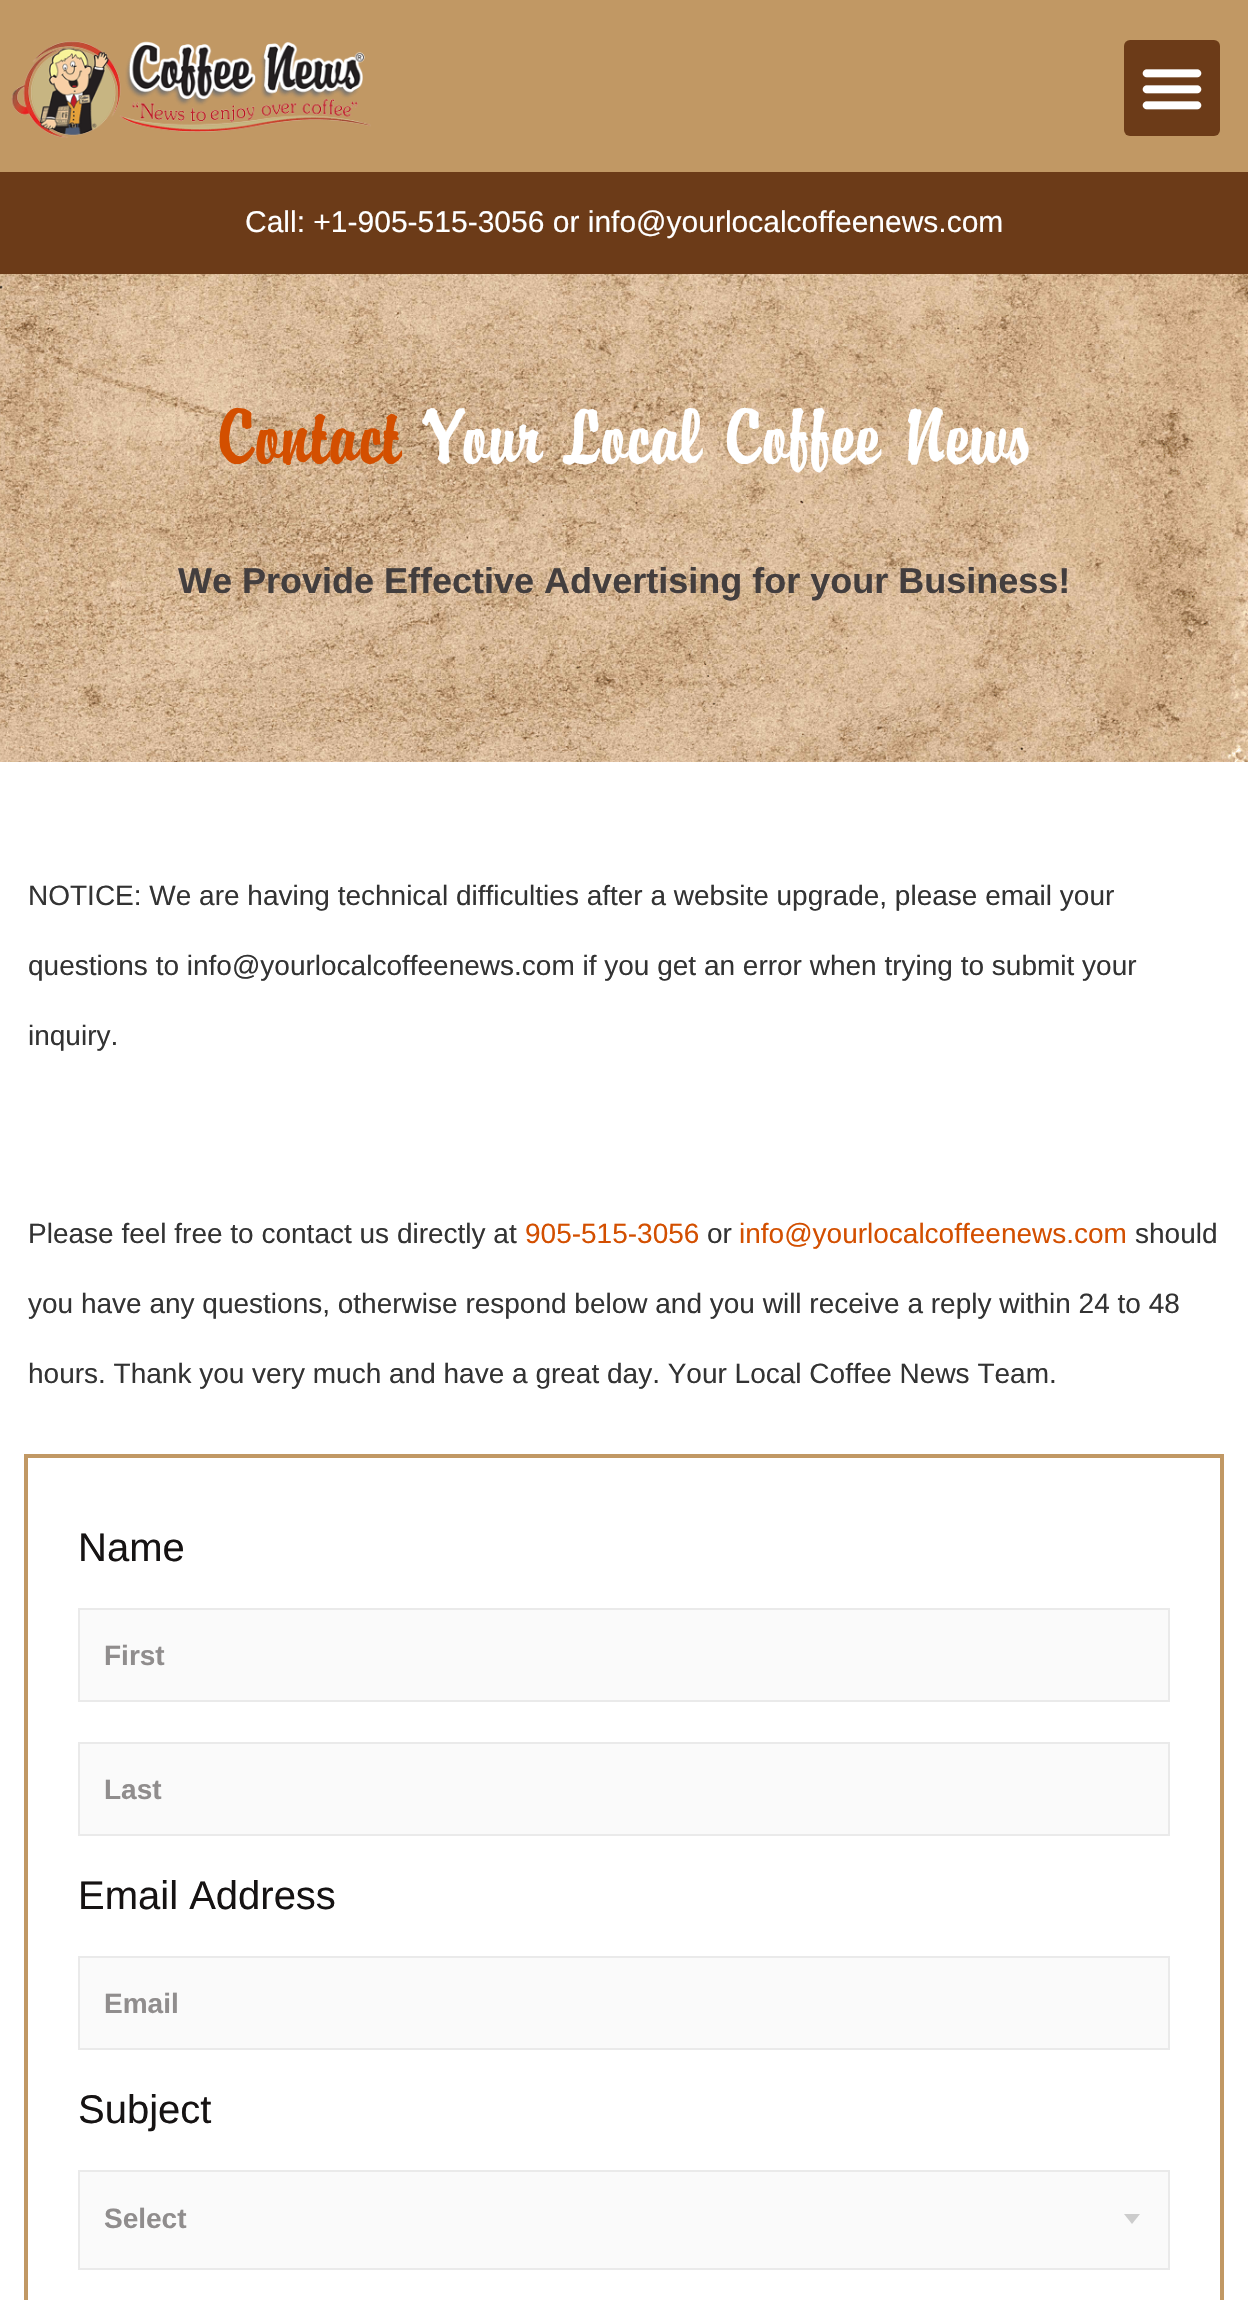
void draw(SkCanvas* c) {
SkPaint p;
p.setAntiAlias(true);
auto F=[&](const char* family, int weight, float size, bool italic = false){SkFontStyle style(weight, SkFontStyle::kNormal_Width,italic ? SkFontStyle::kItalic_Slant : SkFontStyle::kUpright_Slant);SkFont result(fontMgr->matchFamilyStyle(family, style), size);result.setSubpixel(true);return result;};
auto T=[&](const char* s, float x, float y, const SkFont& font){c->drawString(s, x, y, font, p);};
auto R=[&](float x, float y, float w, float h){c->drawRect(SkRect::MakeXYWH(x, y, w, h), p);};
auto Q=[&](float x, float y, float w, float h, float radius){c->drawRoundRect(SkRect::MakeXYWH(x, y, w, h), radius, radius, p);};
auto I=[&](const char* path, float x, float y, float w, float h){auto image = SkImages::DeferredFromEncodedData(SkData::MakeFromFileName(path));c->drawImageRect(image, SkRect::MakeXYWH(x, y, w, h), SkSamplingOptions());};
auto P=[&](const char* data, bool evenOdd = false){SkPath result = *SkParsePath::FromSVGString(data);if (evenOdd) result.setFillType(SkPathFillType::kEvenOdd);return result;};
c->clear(0xffffffff);
p.setColor(0xffc19864);
R(0,0,1248,172);
I("1.png",11,41,360,97);
p.setColor(0xff6c3b18);
Q(1124,40,96,96,6);
I("2.png",1142,69,60,41);
R(0,172,1248,102);
auto f1 = F("Liberation Sans",400,30);
p.setColor(0xffffffff);
T("Call: +1-905-515-3056 or info@yourlocalcoffeenews.com",245,232,f1);
I("3.png",0,274,1248,488);
auto f2 = F("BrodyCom",400,84);
p.setColor(0xffd34f00);
T("Contact",217,464,f2);
p.setColor(0xffffffff);
T("Your Local Coffee News",424,464,f2);
auto f3 = F("Liberation Sans",700,36);
p.setColor(0xff433e3e);
T("We Provide Effective Advertising for your Business!",178,593,f3);
auto f4 = F("Liberation Sans",400,28);
p.setColor(0xff333333);
T("NOTICE: We are having technical difficulties after a website upgrade, please email your",28,905,f4);
T("questions to info@yourlocalcoffeenews.com if you get an error when trying to submit your",28,975,f4);
T("inquiry.",28,1045,f4);
T("Please feel free to contact us directly at",28,1243,f4);
p.setColor(0xffd34f00);
T("905-515-3056",525,1243,f4);
p.setColor(0xff333333);
T("or",707,1243,f4);
p.setColor(0xffd34f00);
T("info@yourlocalcoffeenews.com",739,1243,f4);
p.setColor(0xff333333);
T("should",1135,1243,f4);
T("you have any questions, otherwise respond below and you will receive a reply within 24 to 48",28,1313,f4);
T("hours. Thank you very much and have a great day. Your Local Coffee News Team.",28,1383,f4);
p.setStroke(true);
p.setStrokeWidth(4);
p.setColor(0xffc19864);
c->drawRect(SkRect::MakeXYWH(26,1456,1196,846),p);
auto f5 = F("Liberation Sans",400,40);
p.setStroke(false);
p.setColor(0xff161313);
T("Name",78,1561,f5);
p.setColor(0xfffafafa);
c->drawRect(SkRect::MakeXYWH(79,1609,1090,92),p);
p.setStroke(true);
p.setStrokeWidth(2);
p.setColor(0xffeaeaea);
c->drawRect(SkRect::MakeXYWH(79,1609,1090,92),p);
auto f6 = F("Liberation Sans",700,28);
p.setStroke(false);
p.setColor(0xff908d8d);
T("First",104,1665,f6);
p.setColor(0xfffafafa);
c->drawRect(SkRect::MakeXYWH(79,1743,1090,92),p);
p.setStroke(true);
p.setColor(0xffeaeaea);
c->drawRect(SkRect::MakeXYWH(79,1743,1090,92),p);
p.setStroke(false);
p.setColor(0xff908d8d);
T("Last",104,1799,f6);
p.setColor(0xff161313);
T("Email Address",78,1909,f5);
p.setColor(0xfffafafa);
c->drawRect(SkRect::MakeXYWH(79,1957,1090,92),p);
p.setStroke(true);
p.setColor(0xffeaeaea);
c->drawRect(SkRect::MakeXYWH(79,1957,1090,92),p);
p.setStroke(false);
p.setColor(0xff908d8d);
T("Email",104,2013,f6);
p.setColor(0xff161313);
T("Subject",78,2123,f5);
p.setColor(0xfffafafa);
c->drawRect(SkRect::MakeXYWH(79,2171,1090,98),p);
p.setStroke(true);
p.setColor(0xffeaeaea);
c->drawRect(SkRect::MakeXYWH(79,2171,1090,98),p);
p.setStroke(false);
p.setColor(0xff908d8d);
T("Select",104,2228,f6);
p.setColor(0xffcccccc);
c->drawPath(P("M1124 2214h16l-8 10z"),p);
}
